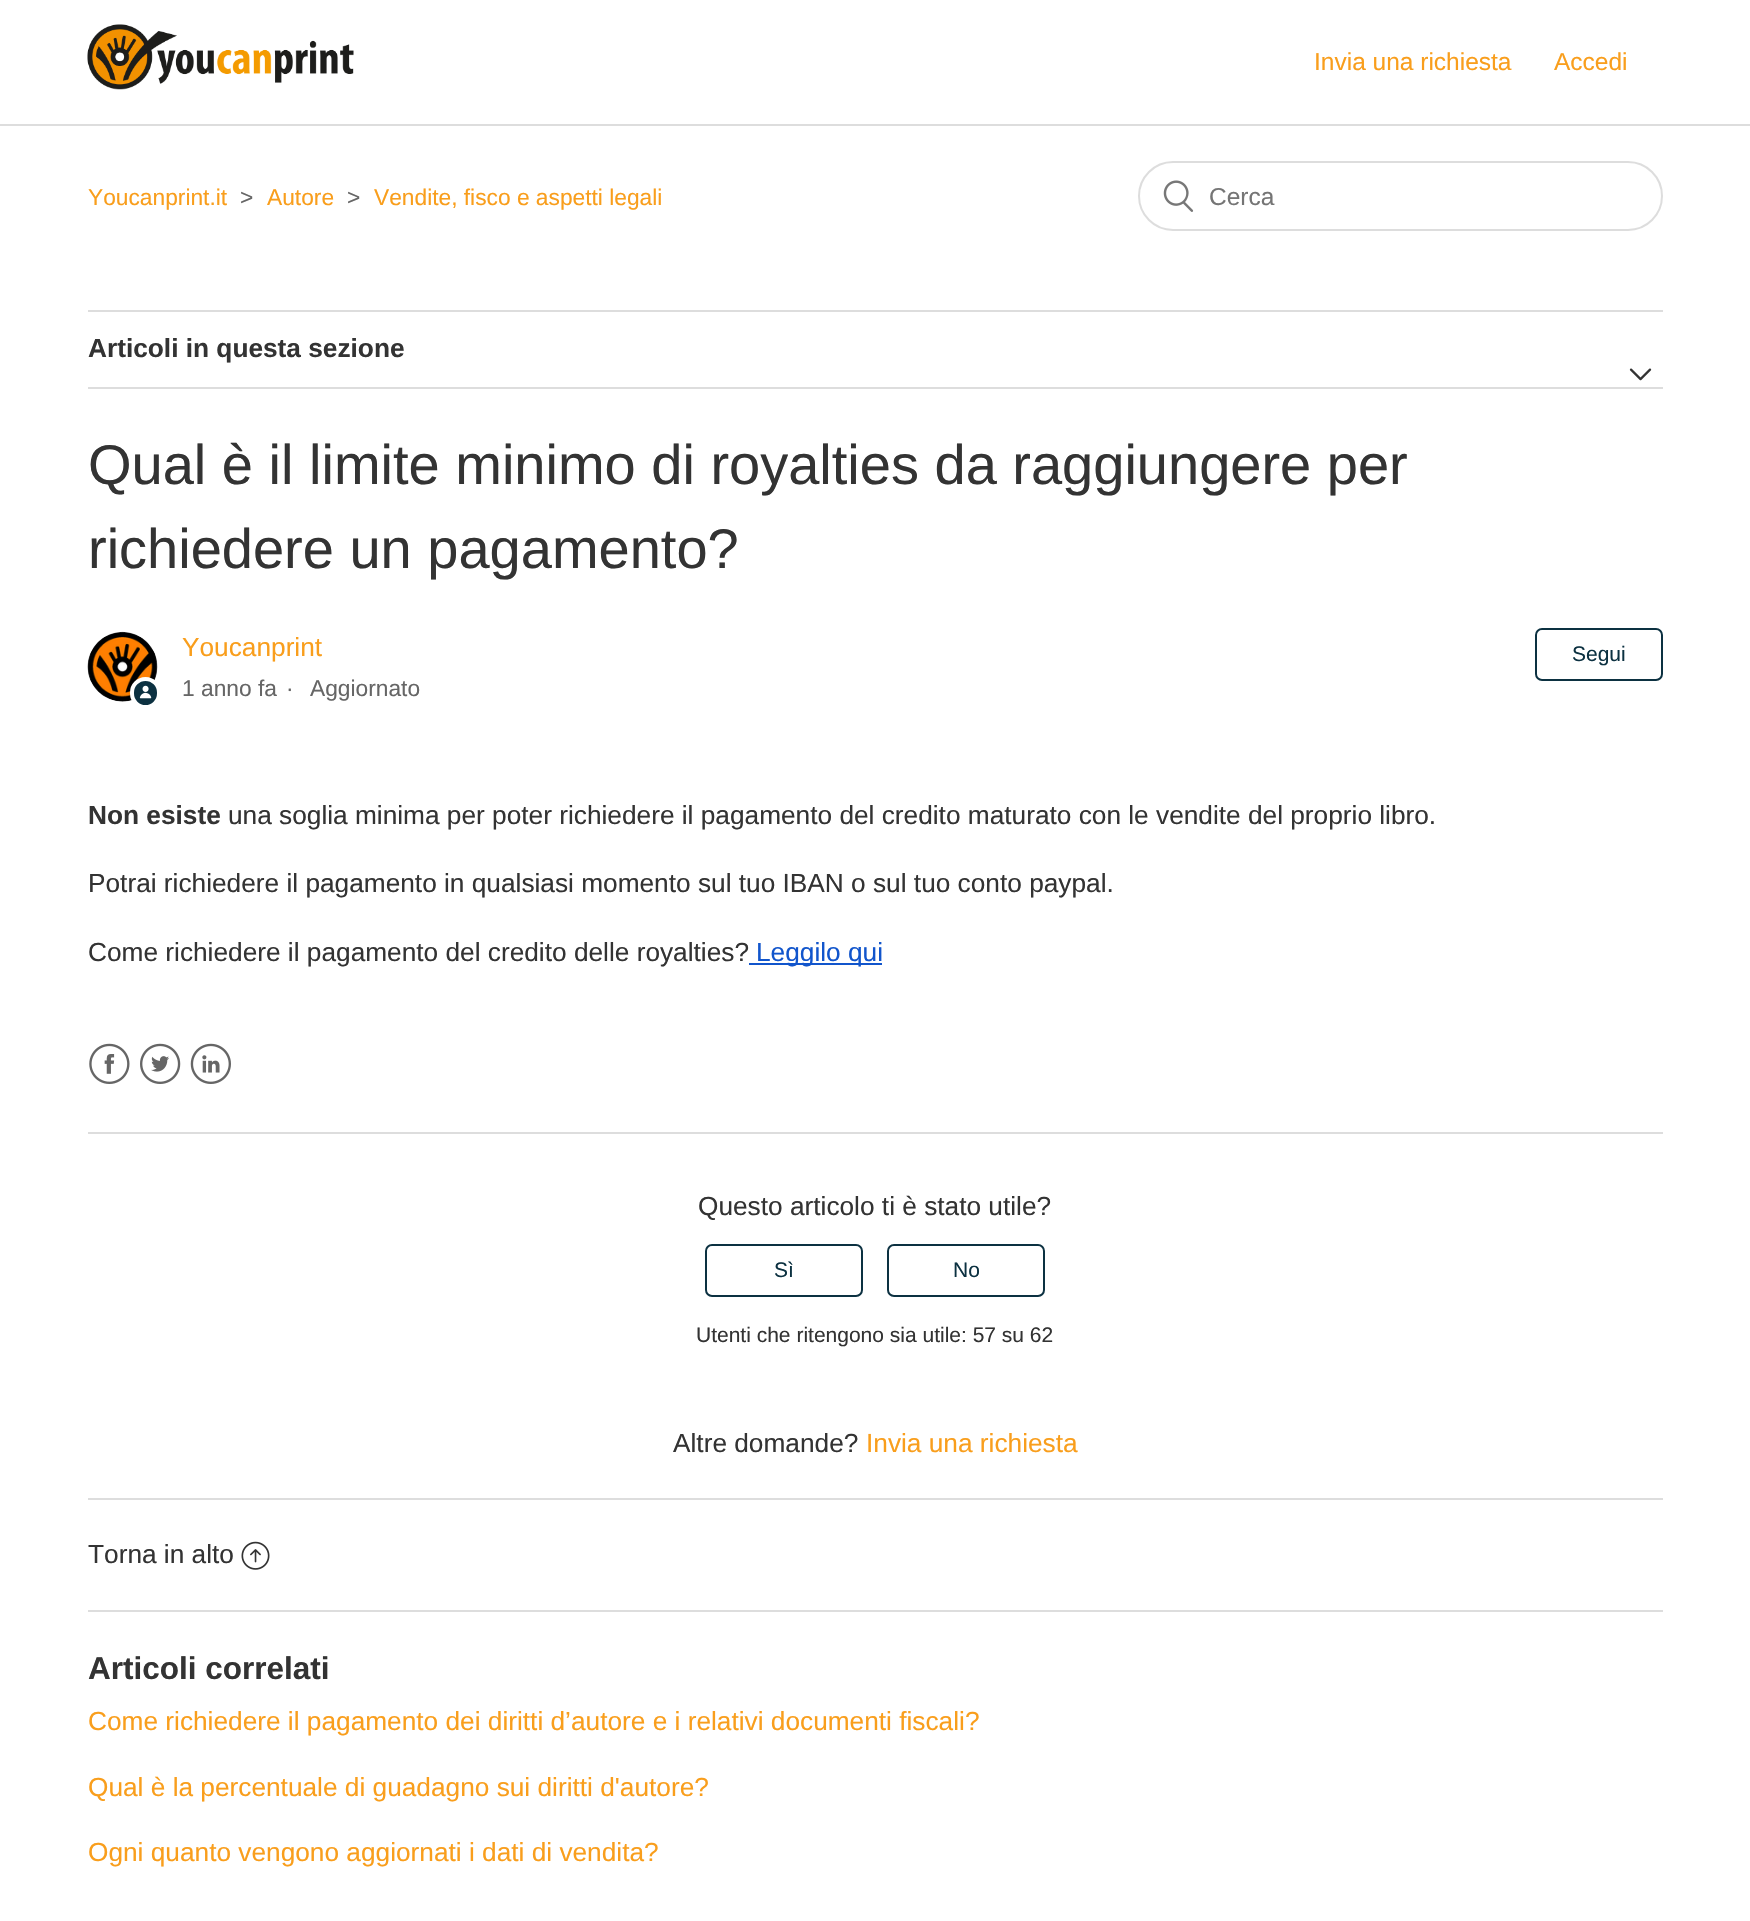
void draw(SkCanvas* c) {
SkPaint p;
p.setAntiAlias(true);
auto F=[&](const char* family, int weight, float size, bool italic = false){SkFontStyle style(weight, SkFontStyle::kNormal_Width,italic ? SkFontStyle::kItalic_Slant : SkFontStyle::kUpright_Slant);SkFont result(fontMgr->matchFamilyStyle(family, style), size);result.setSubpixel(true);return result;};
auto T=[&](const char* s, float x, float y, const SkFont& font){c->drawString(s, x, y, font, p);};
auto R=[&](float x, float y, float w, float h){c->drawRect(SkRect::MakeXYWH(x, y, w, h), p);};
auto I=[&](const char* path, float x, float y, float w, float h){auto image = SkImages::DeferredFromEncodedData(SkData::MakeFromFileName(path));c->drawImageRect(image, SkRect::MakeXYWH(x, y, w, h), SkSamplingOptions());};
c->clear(0xffffffff);
I("1.png",87,24,267,66);
auto f1 = F("Liberation Sans",400,24.5);
p.setColor(0xfff99e1c);
T("Invia una richiesta",1314,70,f1);
T("Accedi",1554,70,f1);
p.setColor(0xffdddddd);
R(0,124,1750,2);
auto f2 = F("Liberation Sans",400,22.75);
p.setColor(0xfff99e1c);
T("Youcanprint.it",88,205,f2);
p.setColor(0xff666666);
T(">",240,205,f2);
p.setColor(0xfff99e1c);
T("Autore",267,205,f2);
p.setColor(0xff666666);
T(">",347,205,f2);
p.setColor(0xfff99e1c);
T("Vendite, fisco e aspetti legali",374,205,f2);
p.setStroke(true);
p.setStrokeWidth(2);
p.setColor(0xffdddddd);
c->drawRoundRect(SkRect::MakeXYWH(1139,162,523,68),34,34,p);
I("2.png",1163,180,31,32);
p.setStroke(false);
p.setColor(0xff757575);
T("Cerca",1209,205,f1);
p.setColor(0xffdddddd);
R(88,310,1575,2);
R(88,387,1575,2);
auto f3 = F("Liberation Sans",700,26.25);
p.setColor(0xff333333);
T("Articoli in questa sezione",88,357,f3);
I("3.png",1629,368,23,13);
auto f4 = F("Liberation Sans",400,56);
T("Qual è il limite minimo di royalties da raggiungere per",88,484,f4);
T("richiedere un pagamento?",88,568,f4);
I("4.png",87,631,71,71);
p.setColor(0xff0c3141);
c->drawRoundRect(SkRect::MakeXYWH(132,679,27,28),13.5,13.5,p);
p.setStroke(true);
p.setStrokeWidth(4);
p.setColor(0xffffffff);
c->drawRoundRect(SkRect::MakeXYWH(132,679,27,28),13.5,13.5,p);
I("5.png",139,685,13,14);
auto f5 = F("Liberation Sans",400,26.25);
p.setStroke(false);
p.setColor(0xfff99e1c);
T("Youcanprint",182,656,f5);
p.setColor(0xff666666);
T("1 anno fa",182,696,f2);
T("·",286,696,f2);
T("Aggiornato",310,696,f2);
p.setStroke(true);
p.setStrokeWidth(2);
p.setColor(0xff0c3141);
c->drawRoundRect(SkRect::MakeXYWH(1536,629,126,51),6,6,p);
auto f6 = F("Liberation Sans",400,21);
p.setStroke(false);
T("Segui",1572,661,f6);
p.setColor(0xff333333);
T("Non esiste",88,824,f3);
T("una soglia minima per poter richiedere il pagamento del credito maturato con le vendite del proprio libro.",228,824,f5);
T("Potrai richiedere il pagamento in qualsiasi momento sul tuo IBAN o sul tuo conto paypal.",88,892,f5);
T("Come richiedere il pagamento del credito delle royalties?",88,961,f5);
p.setColor(0xff1155cc);
R(749,963,133,2);
T("Leggilo qui",756,961,f5);
I("6.png",89,1043,41,41);
I("7.png",140,1043,41,41);
I("8.png",190,1043,41,41);
p.setColor(0xffdddddd);
R(88,1132,1575,2);
p.setColor(0xff333333);
T("Questo articolo ti è stato utile?",698,1215,f5);
p.setStroke(true);
p.setColor(0xff0c3141);
c->drawRoundRect(SkRect::MakeXYWH(706,1245,156,51),6,6,p);
p.setStroke(false);
T("Sì",774,1277,f6);
p.setStroke(true);
c->drawRoundRect(SkRect::MakeXYWH(888,1245,156,51),6,6,p);
p.setStroke(false);
T("No",953,1277,f6);
p.setColor(0xff333333);
T("Utenti che ritengono sia utile: 57 su 62",696,1342,f6);
T("Altre domande?",673,1452,f5);
p.setColor(0xfff99e1c);
T("Invia una richiesta",866,1452,f5);
p.setColor(0xffdddddd);
R(88,1498,1575,2);
p.setColor(0xff333333);
T("Torna in alto",88,1563,f5);
I("9.png",241,1541,29,29);
p.setColor(0xffdddddd);
R(88,1610,1575,2);
auto f7 = F("Liberation Sans",700,31.5);
p.setColor(0xff333333);
T("Articoli correlati",88,1679,f7);
p.setColor(0xfff99e1c);
T("Come richiedere il pagamento dei diritti d’autore e i relativi documenti fiscali?",88,1730,f5);
T("Qual è la percentuale di guadagno sui diritti d'autore?",88,1796,f5);
T("Ogni quanto vengono aggiornati i dati di vendita?",88,1861,f5);
}
